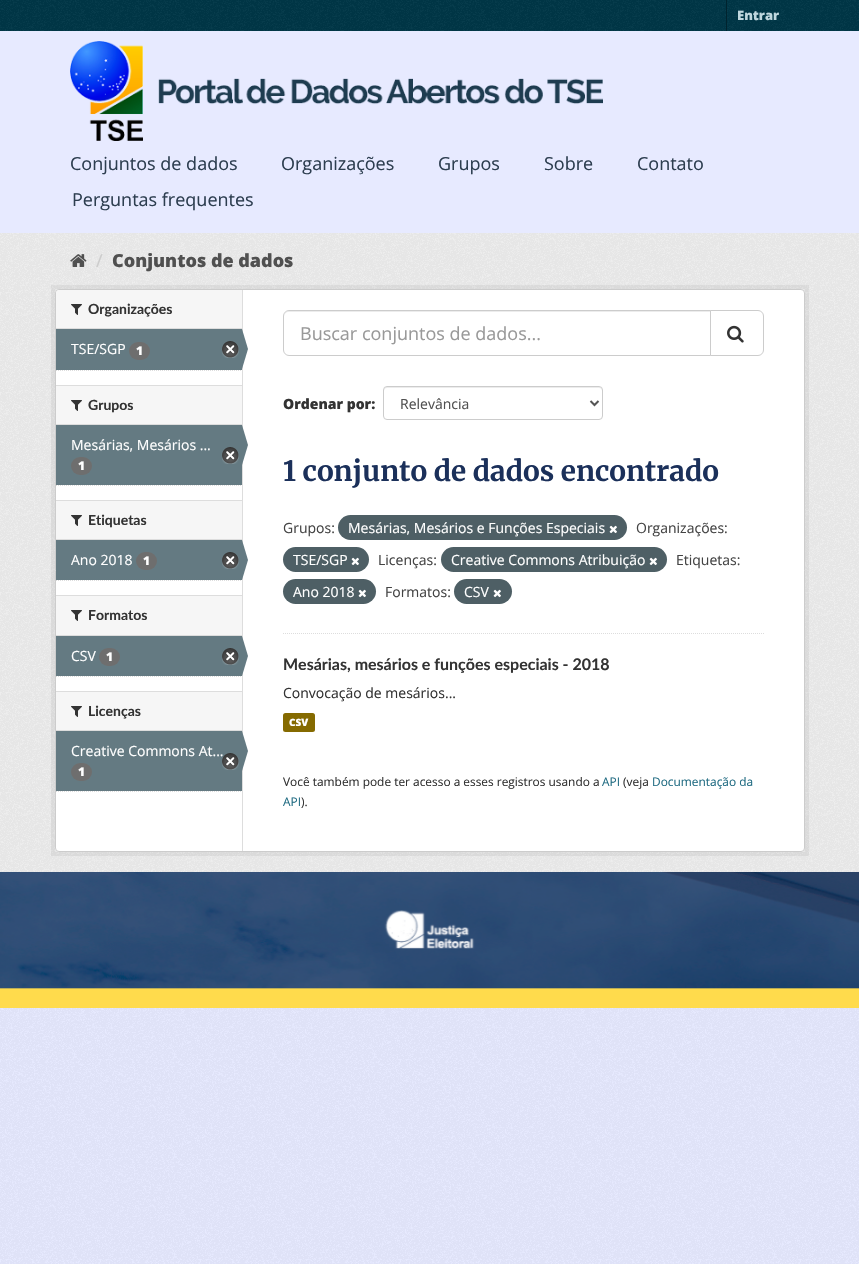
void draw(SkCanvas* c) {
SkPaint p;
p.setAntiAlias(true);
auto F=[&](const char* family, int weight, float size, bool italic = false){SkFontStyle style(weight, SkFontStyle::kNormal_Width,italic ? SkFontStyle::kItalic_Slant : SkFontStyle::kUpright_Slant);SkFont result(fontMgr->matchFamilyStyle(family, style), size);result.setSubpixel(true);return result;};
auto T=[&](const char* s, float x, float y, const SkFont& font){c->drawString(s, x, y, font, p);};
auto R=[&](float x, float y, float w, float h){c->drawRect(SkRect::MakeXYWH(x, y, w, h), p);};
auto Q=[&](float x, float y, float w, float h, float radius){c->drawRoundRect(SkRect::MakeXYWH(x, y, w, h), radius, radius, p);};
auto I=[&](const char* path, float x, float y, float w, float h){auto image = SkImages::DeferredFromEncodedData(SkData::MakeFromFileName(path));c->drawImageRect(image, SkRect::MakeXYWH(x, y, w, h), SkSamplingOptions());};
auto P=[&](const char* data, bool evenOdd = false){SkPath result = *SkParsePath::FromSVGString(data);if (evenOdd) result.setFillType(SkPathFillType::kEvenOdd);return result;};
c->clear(0xffe7eaff);
I("1.png",0,1008,859,256);
p.setColor(0xff003647);
R(0,0,859,31);
I("2.png",0,0,859,31);
p.setColor(0xff00232e);
R(726,0,1,31);
auto f1 = F("Open Sans",800,13);
p.setColor(0xffbfd7de);
T("Entrar",737,20,f1);
I("3.png",70,41,533,100);
auto f2 = F("Open Sans",400,18);
p.setColor(0xff2d3e50);
T("Conjuntos de dados",70,170,f2);
T("Organizações",281,170,f2);
T("Grupos",438,170,f2);
T("Sobre",544,170,f2);
T("Contato",637,170,f2);
T("Perguntas frequentes",72,206,f2);
p.setColor(0xffeeeeee);
R(0,233,859,639);
I("4.png",0,233,859,639);
I("5.png",70,254,17,13);
p.setColor(0xffcccccc);
T("/",96,267,f2);
auto f3 = F("Open Sans",800,18);
p.setColor(0xff505050);
T("Conjuntos de dados",112,267,f3);
p.setStroke(true);
p.setStrokeWidth(4);
p.setColor(0x0d000000);
c->drawRect(SkRect::MakeXYWH(53,287,754,567),p);
p.setStroke(false);
p.setColor(0xffffffff);
c->drawRoundRect(SkRect::MakeXYWH(55.5,289.5,749,562),3.5,3.5,p);
p.setStroke(true);
p.setStrokeWidth(1);
p.setColor(0xffcccccc);
c->drawRoundRect(SkRect::MakeXYWH(55.5,289.5,749,562),3.5,3.5,p);
p.setStroke(false);
p.setColor(0xfff6f6f6);
c->drawPath(P("M59 290h183v39h-186v-36c0-1.5 1.5-3 3-3z"),p);
p.setColor(0xffdddddd);
R(56,328,186,1);
I("6.png",71,304,11,11);
auto f4 = F("Lato",700,14);
p.setColor(0xff333333);
T("Organizações",88,314,f4);
p.setColor(0xff647a82);
R(56,329,186,41);
auto f5 = F("Open Sans",400,14);
p.setColor(0xffffffff);
T("TSE/SGP",71,354,f5);
p.setColor(0xff6e6e6e);
Q(129,342,21,18,9);
auto f6 = F("Open Sans",800,12);
p.setColor(0xffffffff);
T("1",136,355,f6);
I("7.png",222,341,17,17);
p.setColor(0xffdddddd);
R(242,290,1,561);
p.setColor(0xff647a82);
c->drawPath(P("M242 369v-40l6 20z"),p);
p.setStroke(true);
p.setColor(0xffdddddd);
p.setPathEffect(SkDashPathEffect::Make({{1,1}}, 0));
c->drawPath(P("M56 370.5h186"),p);
p.setPathEffect(nullptr);
p.setStroke(false);
p.setColor(0xfff6f6f6);
R(56,386,186,38);
p.setColor(0xffdddddd);
R(56,385,186,1);
R(56,424,186,1);
I("6.png",71,400,11,11);
p.setColor(0xff333333);
T("Grupos",88,410,f4);
p.setColor(0xff647a82);
R(56,425,186,60);
p.setColor(0xffffffff);
T("Mesárias, Mesários ...",71,450,f5);
p.setColor(0xff647a82);
c->drawPath(P("M242 465v-40l6 20z"),p);
I("7.png",222,447,17,17);
p.setColor(0xff6e6e6e);
Q(71,457,21,18,9);
p.setColor(0xffffffff);
T("1",78,470,f6);
p.setStroke(true);
p.setColor(0xffdddddd);
p.setPathEffect(SkDashPathEffect::Make({{1,1}}, 0));
c->drawPath(P("M56 485.5h186"),p);
p.setPathEffect(nullptr);
p.setStroke(false);
p.setColor(0xfff6f6f6);
R(56,501,186,38);
p.setColor(0xffdddddd);
R(56,500,186,1);
R(56,539,186,1);
I("6.png",71,515,11,11);
p.setColor(0xff333333);
T("Etiquetas",88,525,f4);
p.setColor(0xff647a82);
R(56,540,186,40);
p.setColor(0xffffffff);
T("Ano 2018",71,565,f5);
p.setColor(0xff6e6e6e);
Q(136,552,21,18,9);
p.setColor(0xffffffff);
T("1",143,565,f6);
I("7.png",222,552,17,17);
p.setColor(0xff647a82);
c->drawPath(P("M242 580v-40l6 20z"),p);
p.setStroke(true);
p.setColor(0xffdddddd);
p.setPathEffect(SkDashPathEffect::Make({{1,1}}, 0));
c->drawPath(P("M56 580.5h186"),p);
p.setPathEffect(nullptr);
p.setStroke(false);
p.setColor(0xfff6f6f6);
R(56,596,186,39);
p.setColor(0xffdddddd);
R(56,595,186,1);
R(56,635,186,1);
I("6.png",71,610,11,11);
p.setColor(0xff333333);
T("Formatos",88,620,f4);
p.setColor(0xff647a82);
R(56,636,186,40);
p.setColor(0xffffffff);
T("CSV",71,661,f5);
p.setColor(0xff6e6e6e);
Q(99,648,21,18,9);
p.setColor(0xffffffff);
T("1",106,661,f6);
I("7.png",222,648,17,17);
p.setColor(0xff647a82);
c->drawPath(P("M242 676v-40l6 20z"),p);
p.setStroke(true);
p.setColor(0xffdddddd);
p.setPathEffect(SkDashPathEffect::Make({{1,1}}, 0));
c->drawPath(P("M56 676.5h186"),p);
p.setPathEffect(nullptr);
p.setStroke(false);
p.setColor(0xfff6f6f6);
R(56,692,186,38);
p.setColor(0xffdddddd);
R(56,691,186,1);
R(56,730,186,1);
I("6.png",71,706,11,11);
p.setColor(0xff333333);
T("Licenças",88,716,f4);
p.setColor(0xff647a82);
R(56,731,186,60);
p.setColor(0xffffffff);
T("Creative Commons At...",71,756,f5);
p.setColor(0xff647a82);
c->drawPath(P("M242 771v-40l6 20z"),p);
I("8.png",222,753,17,17);
p.setColor(0xff6e6e6e);
Q(71,763,21,18,9);
p.setColor(0xffffffff);
T("1",78,776,f6);
p.setStroke(true);
p.setColor(0xffdddddd);
p.setPathEffect(SkDashPathEffect::Make({{1,1}}, 0));
c->drawPath(P("M56 791.5h186"),p);
p.setPathEffect(nullptr);
p.setPathEffect(SkDashPathEffect::Make({{1,1}}, 0));
c->drawPath(P("M283 633.5h481"),p);
p.setPathEffect(nullptr);
p.setStroke(false);
p.setColor(0xffececec);
c->drawPath(P("M289 312h421v-1h-421c-3 0-5 3-5 6c0-3 2-5 5-5z"),p);
p.setStroke(true);
p.setColor(0xffcccccc);
c->drawPath(P("M289 310.5h421.5v45h-421.5c-3 0-5.5-2.5-5.5-5.5v-34c0-3 2.5-5.5 5.5-5.5z"),p);
p.setStroke(false);
p.setColor(0xff999999);
T("Buscar conjuntos de dados...",300,340,f2);
p.setColor(0xffffffff);
c->drawPath(P("M710.5 310.5h47.5c3 0 5.5 2.5 5.5 5.5v34c0 3-2.5 5.5-5.5 5.5h-47.5z"),p);
p.setStroke(true);
p.setColor(0xffcccccc);
c->drawPath(P("M710.5 310.5h47.5c3 0 5.5 2.5 5.5 5.5v34c0 3-2.5 5.5-5.5 5.5h-47.5z"),p);
I("9.png",727,325,17,18);
auto f7 = F("Open Sans",800,14);
p.setStroke(false);
p.setColor(0xff333333);
T("Ordenar por:",283,409,f7);
p.setColor(0xffececec);
c->drawPath(P("M387 388h212c2 0 3 1 3 3v-1c0-2-1-3-3-3h-212c-2 0-3 1-3 3v1c0-2 1-3 3-3z"),p);
p.setStroke(true);
p.setColor(0xffcccccc);
c->drawRoundRect(SkRect::MakeXYWH(383.5,386.5,219,33),3.5,3.5,p);
p.setStrokeWidth(2);
p.setColor(0xff555555);
c->drawPath(P("M590.5 401l4 4l4-4"),p);
p.setStroke(false);
p.setColor(0xff505050);
T("Relevância",400,409,f5);
auto f8 = F("Merriweather",700,28);
p.setColor(0xff1b305a);
T("1 conjunto de dados encontrado",283,481,f8);
p.setColor(0xff444444);
T("Grupos:",283,533,f5);
p.setColor(0xff4e5f65);
Q(338,515,289,25,12.5);
p.setColor(0xffffffff);
T("Mesárias, Mesários e Funções Especiais",348,533,f5);
I("10.png",609,525,8,9);
p.setColor(0xff444444);
T("Organizações:",636,533,f5);
p.setColor(0xff4e5f65);
Q(283,547,86,25,12.5);
p.setColor(0xffffffff);
T("TSE/SGP",293,565,f5);
I("10.png",351,557,8,9);
p.setColor(0xff444444);
T("Licenças:",378,565,f5);
p.setColor(0xff4e5f65);
Q(441,547,226,25,12.5);
p.setColor(0xffffffff);
T("Creative Commons Atribuição",451,565,f5);
I("10.png",649,557,8,9);
p.setColor(0xff444444);
T("Etiquetas:",676,565,f5);
p.setColor(0xff4e5f65);
Q(283,579,93,25,12.5);
p.setColor(0xffffffff);
T("Ano 2018",293,597,f5);
I("10.png",358,589,8,9);
p.setColor(0xff444444);
T("Formatos:",385,597,f5);
p.setColor(0xff4e5f65);
Q(454,579,58,25,12.5);
p.setColor(0xffffffff);
T("CSV",464,597,f5);
I("10.png",493,589,8,9);
auto f9 = F("Lato",700,16);
p.setColor(0xff333333);
T("Mesárias, mesários e funções especiais - 2018",283,670,f9);
T("Convocação de mesários...",283,698,f5);
p.setColor(0xff856a00);
Q(283,713,32,19,2.5);
auto f10 = F("Open Sans",800,10);
p.setColor(0xffffffff);
T("CSV",289,726,f10);
auto f11 = F("Open Sans",400,11.9);
p.setColor(0xff333333);
T("Você também pode ter acesso a esses registros usando a",283,786,f11);
p.setColor(0xff206b82);
T("API",602,786,f11);
p.setColor(0xff333333);
T("(veja",623,786,f11);
p.setColor(0xff206b82);
T("Documentação da",652,786,f11);
T("API",283,806,f11);
p.setColor(0xff333333);
T(").",301,806,f11);
I("11.png",0,872,859,136);
}
